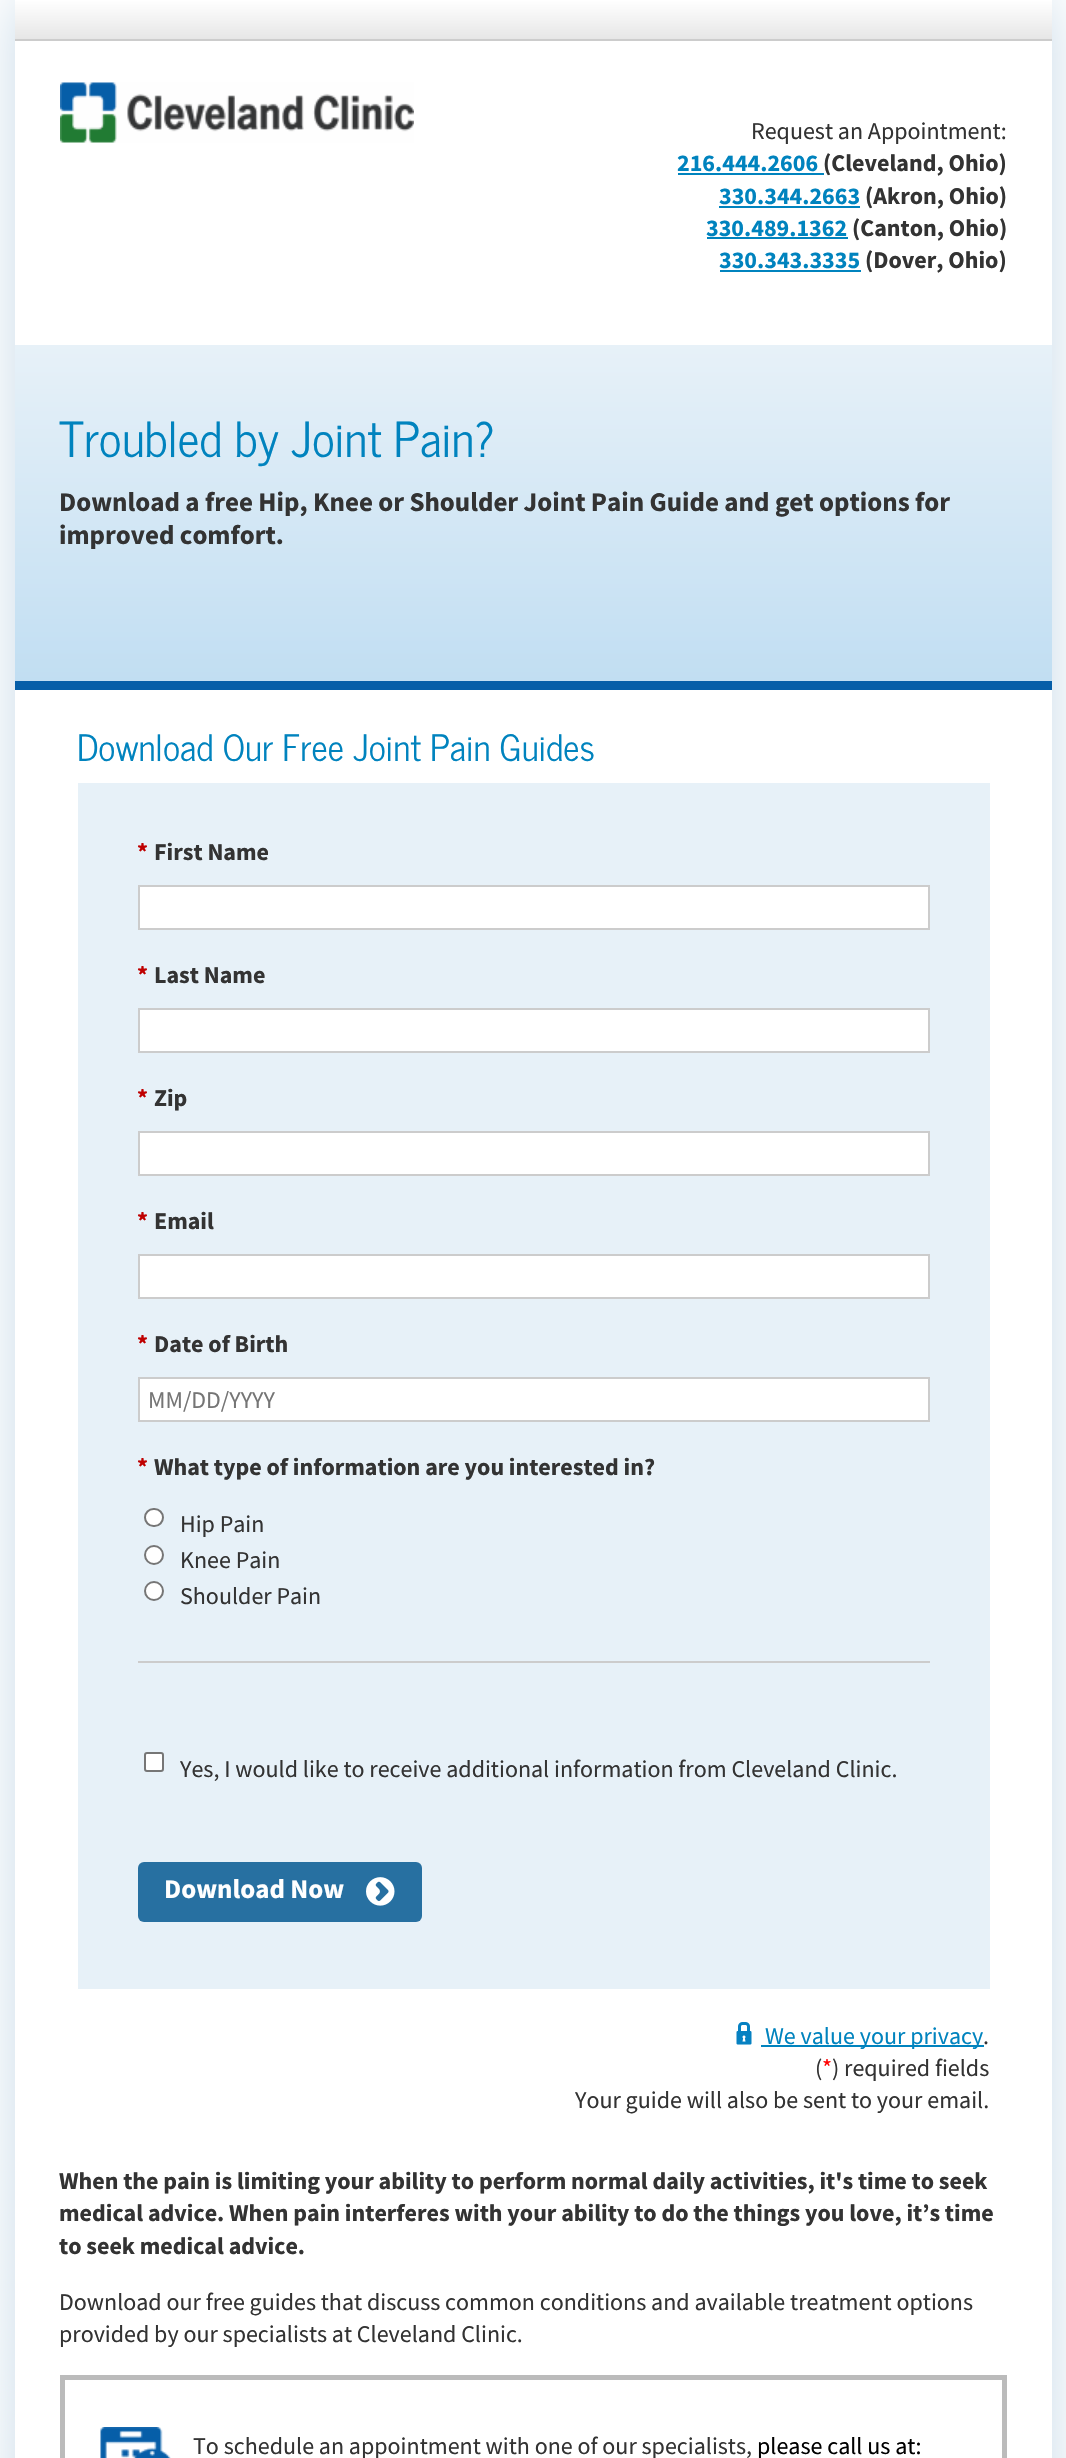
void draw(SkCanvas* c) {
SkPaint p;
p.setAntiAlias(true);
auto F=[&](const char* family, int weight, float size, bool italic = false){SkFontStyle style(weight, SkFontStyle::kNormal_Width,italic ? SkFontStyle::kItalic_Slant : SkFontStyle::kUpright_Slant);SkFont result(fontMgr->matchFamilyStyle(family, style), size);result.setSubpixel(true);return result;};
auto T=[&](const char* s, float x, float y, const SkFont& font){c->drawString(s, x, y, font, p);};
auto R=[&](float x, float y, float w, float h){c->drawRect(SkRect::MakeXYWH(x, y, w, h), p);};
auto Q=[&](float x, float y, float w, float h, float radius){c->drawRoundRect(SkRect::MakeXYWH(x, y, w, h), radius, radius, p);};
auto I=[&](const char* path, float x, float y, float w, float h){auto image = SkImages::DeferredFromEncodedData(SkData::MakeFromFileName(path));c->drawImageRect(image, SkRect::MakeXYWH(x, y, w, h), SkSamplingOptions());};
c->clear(0xffffffff);
p.setColor(0xffc9dbe9);
p.setMaskFilter(SkMaskFilter::MakeBlur(kNormal_SkBlurStyle, 27));
c->drawRect(SkRect::MakeXYWH(15,0,1037,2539),p);
p.setMaskFilter(nullptr);
p.setColor(0xffffffff);
R(15,41,1037,2417);
{
const SkColor colors[] = {0xffffffff,0xffe6e6e6};
const float stops[] = {0,1};
const SkPoint ends[] = {{533,0}, {533,39}};
p.setShader(SkGradientShader::MakeLinear(ends, colors, stops, 2, SkTileMode::kClamp));
p.setAlpha(255);
}
R(15,0,1037,39);
p.setShader(nullptr);
p.setColor(0xffcccccc);
R(15,39,1037,2);
I("1.png",60,82,354,61);
auto f1 = F("Source Sans Pro",400,24);
p.setColor(0xff333333);
T("Request an Appointment:",751,139,f1);
auto f2 = F("Source Sans Pro",700,24);
p.setColor(0xff0083be);
T("216.444.2606",677,171,f2);
p.setColor(0xff333333);
T("(Cleveland, Ohio)",823,171,f2);
p.setColor(0xff0083be);
R(678,173,146,2);
T("330.344.2663",719,204,f2);
R(719,206,141,2);
p.setColor(0xff333333);
T("(Akron, Ohio)",865,204,f2);
p.setColor(0xff0083be);
T("330.489.1362",706,236,f2);
R(707,237,141,2);
p.setColor(0xff333333);
T("(Canton, Ohio)",852,236,f2);
p.setColor(0xff0083be);
T("330.343.3335",719,268,f2);
R(720,270,141,2);
p.setColor(0xff333333);
T("(Dover, Ohio)",865,268,f2);
{
const SkColor colors[] = {0xffe7f1f8,0xffc1def2};
const float stops[] = {0,1};
const SkPoint ends[] = {{533,345}, {533,681}};
p.setShader(SkGradientShader::MakeLinear(ends, colors, stops, 2, SkTileMode::kClamp));
p.setAlpha(255);
}
R(15,345,1037,336);
auto f3 = F("News Cycle",400,48);
p.setShader(nullptr);
p.setColor(0xff0083be);
T("Troubled by Joint Pain?",59,457,f3);
auto f4 = F("Source Sans Pro",700,27);
p.setColor(0xff333333);
T("Download a free Hip, Knee or Shoulder Joint Pain Guide and get options for",59,511,f4);
T("improved comfort.",59,544,f4);
p.setColor(0xff065ea8);
R(15,681,1037,9);
auto f5 = F("News Cycle",400,36);
p.setColor(0xff0083be);
T("Download Our Free Joint Pain Guides",77,761,f5);
p.setColor(0xffe7f1f8);
R(78,783,912,1206);
p.setColor(0xffbf0000);
T("*",137,860,f2);
p.setColor(0xff333333);
T("First Name",154,860,f2);
p.setColor(0xffffffff);
c->drawRect(SkRect::MakeXYWH(139,886,790,43),p);
p.setStroke(true);
p.setStrokeWidth(2);
p.setColor(0xffcccccc);
c->drawRect(SkRect::MakeXYWH(139,886,790,43),p);
p.setStroke(false);
p.setColor(0xffbf0000);
T("*",137,983,f2);
p.setColor(0xff333333);
T("Last Name",154,983,f2);
p.setColor(0xffffffff);
c->drawRect(SkRect::MakeXYWH(139,1009,790,43),p);
p.setStroke(true);
p.setColor(0xffcccccc);
c->drawRect(SkRect::MakeXYWH(139,1009,790,43),p);
p.setStroke(false);
p.setColor(0xffbf0000);
T("*",137,1106,f2);
p.setColor(0xff333333);
T("Zip",154,1106,f2);
p.setColor(0xffffffff);
c->drawRect(SkRect::MakeXYWH(139,1132,790,43),p);
p.setStroke(true);
p.setColor(0xffcccccc);
c->drawRect(SkRect::MakeXYWH(139,1132,790,43),p);
p.setStroke(false);
p.setColor(0xffbf0000);
T("*",137,1229,f2);
p.setColor(0xff333333);
T("Email",154,1229,f2);
p.setColor(0xffffffff);
c->drawRect(SkRect::MakeXYWH(139,1255,790,43),p);
p.setStroke(true);
p.setColor(0xffcccccc);
c->drawRect(SkRect::MakeXYWH(139,1255,790,43),p);
p.setStroke(false);
p.setColor(0xffbf0000);
T("*",137,1352,f2);
p.setColor(0xff333333);
T("Date of Birth",154,1352,f2);
p.setColor(0xffffffff);
c->drawRect(SkRect::MakeXYWH(139,1378,790,43),p);
p.setStroke(true);
p.setColor(0xffcccccc);
c->drawRect(SkRect::MakeXYWH(139,1378,790,43),p);
p.setStroke(false);
p.setColor(0xff757575);
T("MM/DD/YYYY",148,1408,f1);
p.setColor(0xffbf0000);
T("*",137,1475,f2);
p.setColor(0xff333333);
T("What type of information are you interested in?",154,1475,f2);
p.setColor(0xffffffff);
c->drawRoundRect(SkRect::MakeXYWH(145,1509,18,17),8.5,8.5,p);
p.setStroke(true);
p.setColor(0xff767676);
c->drawRoundRect(SkRect::MakeXYWH(145,1509,18,17),8.5,8.5,p);
p.setStroke(false);
p.setColor(0xff333333);
T("Hip Pain",180,1532,f1);
p.setColor(0xffffffff);
c->drawCircle(154,1555,9,p);
p.setStroke(true);
p.setColor(0xff767676);
c->drawCircle(154,1555,9,p);
p.setStroke(false);
p.setColor(0xff333333);
T("Knee Pain",180,1568,f1);
p.setColor(0xffffffff);
c->drawCircle(154,1591,9,p);
p.setStroke(true);
p.setColor(0xff767676);
c->drawCircle(154,1591,9,p);
p.setStroke(false);
p.setColor(0xff333333);
T("Shoulder Pain",180,1604,f1);
p.setColor(0xffcccccc);
R(138,1661,792,2);
p.setColor(0xffffffff);
c->drawRoundRect(SkRect::MakeXYWH(145,1753,18,18),2,2,p);
p.setStroke(true);
p.setColor(0xff767676);
c->drawRoundRect(SkRect::MakeXYWH(145,1753,18,18),2,2,p);
p.setStroke(false);
p.setColor(0xff333333);
T("Yes, I would like to receive additional information from Cleveland Clinic.",180,1777,f1);
p.setColor(0xff2770a1);
Q(138,1862,284,60,6);
p.setColor(0xffffffff);
T("Download Now",164,1898,f4);
I("2.png",366,1877,29,29);
I("3.png",736,2022,16,23);
p.setColor(0xff0083be);
R(761,2045,223,2);
T("We value your privacy",765,2044,f1);
p.setColor(0xff333333);
T(".",983,2044,f1);
T("(",815,2076,f1);
p.setColor(0xffff0000);
T("*",822,2076,f1);
p.setColor(0xff333333);
T(") required fields",832,2076,f1);
T("Your guide will also be sent to your email.",575,2108,f1);
T("When the pain is limiting your ability to perform normal daily activities, it's time to seek",59,2189,f2);
T("medical advice. When pain interferes with your ability to do the things you love, it’s time",59,2221,f2);
T("to seek medical advice.",59,2254,f2);
T("Download our free guides that discuss common conditions and available treatment options",59,2310,f1);
T("provided by our specialists at Cleveland Clinic.",59,2342,f1);
p.setStroke(true);
p.setStrokeWidth(5);
p.setColor(0xffbbbbbb);
c->drawRect(SkRect::MakeXYWH(62.5,2377.5,942,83),p);
I("4.png",100,2427,71,31);
p.setStroke(false);
p.setColor(0xff333333);
T("To schedule an appointment with one of our specialists,",193,2454,f1);
p.setColor(0xff000000);
T("please call us at:",757,2454,f1);
}
